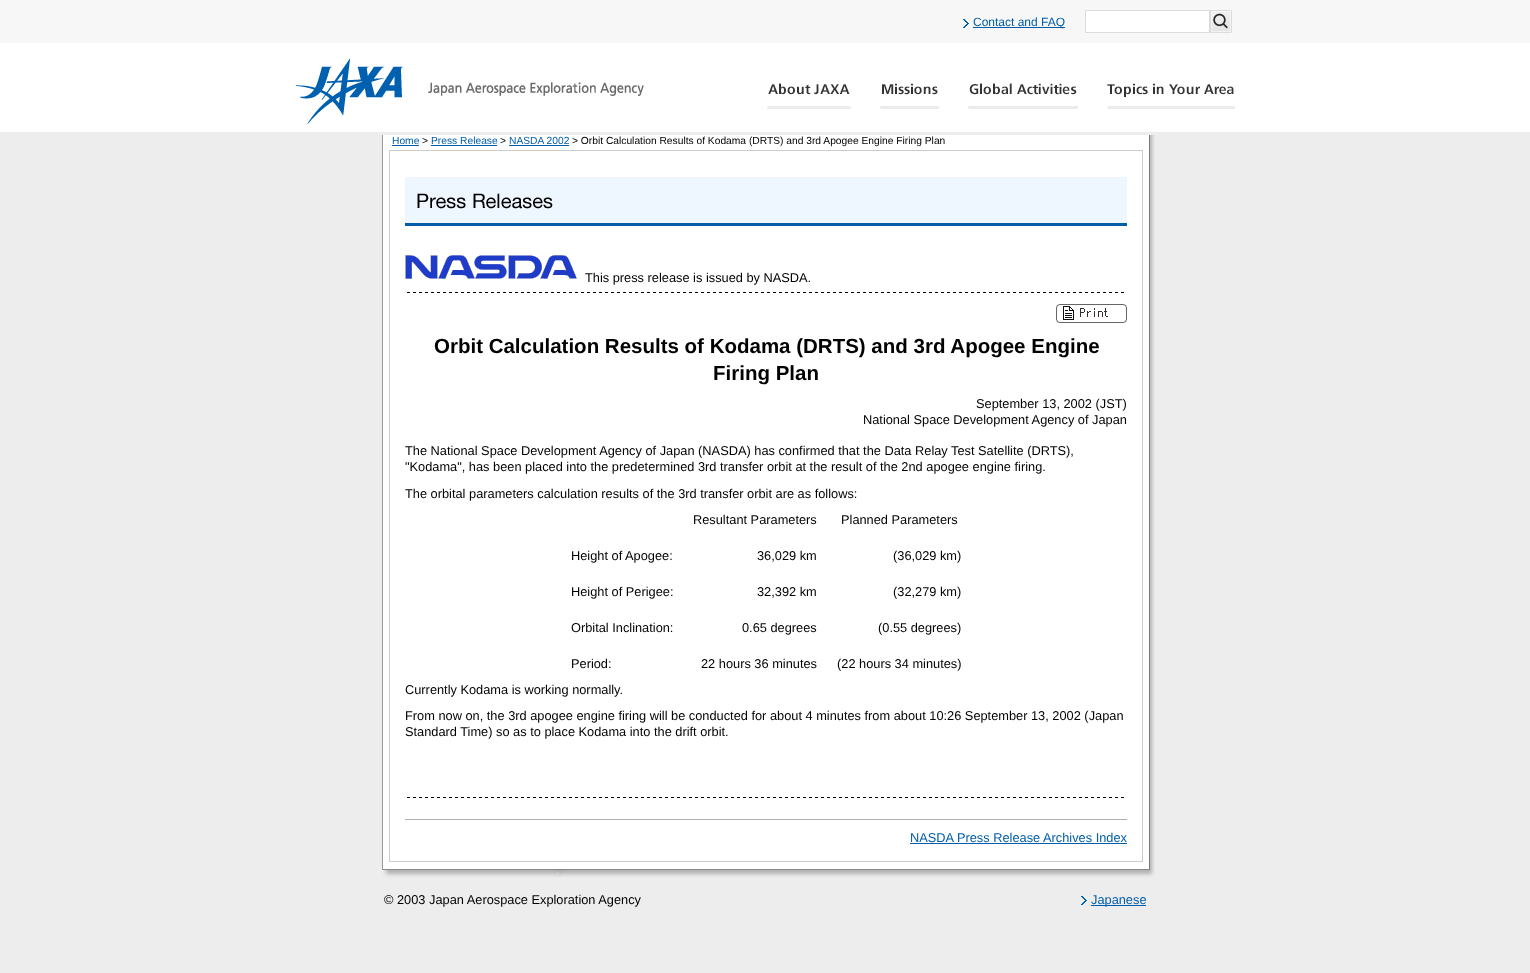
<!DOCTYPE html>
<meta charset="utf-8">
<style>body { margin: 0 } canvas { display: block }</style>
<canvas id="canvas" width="1530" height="973"></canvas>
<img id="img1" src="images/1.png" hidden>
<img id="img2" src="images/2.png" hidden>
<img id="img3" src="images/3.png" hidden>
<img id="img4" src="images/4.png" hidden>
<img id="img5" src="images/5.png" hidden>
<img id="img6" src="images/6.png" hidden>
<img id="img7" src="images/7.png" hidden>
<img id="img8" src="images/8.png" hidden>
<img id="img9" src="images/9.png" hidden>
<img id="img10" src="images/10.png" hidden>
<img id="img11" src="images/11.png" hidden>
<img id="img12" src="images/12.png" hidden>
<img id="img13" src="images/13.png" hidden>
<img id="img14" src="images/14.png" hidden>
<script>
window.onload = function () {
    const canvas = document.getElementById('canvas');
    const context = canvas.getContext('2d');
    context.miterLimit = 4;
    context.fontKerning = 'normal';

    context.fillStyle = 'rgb(237, 237, 237)';
    context.fillRect(0, 0, 1530, 973);
    context.fillStyle = 'rgb(247, 247, 247)';
    context.fillRect(0, 0, 1530, 43);
    context.drawImage(document.getElementById('img1'), 963, 19, 6, 9);
    context.fillStyle = 'rgb(0, 93, 169)';
    context.fillRect(973, 27, 92, 1);
    context.fillStyle = 'rgb(255, 255, 255)';
    context.beginPath();
    context.rect(1085.5, 10.5, 124, 22);
    context.fill();
    context.strokeStyle = 'rgb(219, 219, 219)';
    context.stroke();
    context.drawImage(document.getElementById('img2'), 1210, 10, 22, 23);
    context.fillRect(0, 43, 1530, 89);
    context.drawImage(document.getElementById('img3'), 295, 58, 349, 66);
    context.drawImage(document.getElementById('img4'), 767, 83, 84, 26);
    context.drawImage(document.getElementById('img5'), 880, 83, 60, 26);
    context.drawImage(document.getElementById('img6'), 968, 83, 110, 26);
    context.drawImage(document.getElementById('img7'), 1107, 83, 128, 26);
    context.drawImage(document.getElementById('img8'), 382, 135, 773, 734);
    context.fillStyle = 'rgb(0, 93, 169)';
    context.fillRect(392, 145, 27, 1);
    context.fillRect(431, 145, 66, 1);
    context.fillRect(509, 145, 60, 1);
    context.strokeStyle = 'rgb(204, 204, 204)';
    context.strokeRect(389.5, 150.5, 753, 711);
    context.drawImage(document.getElementById('img9'), 405, 177, 722, 49);
    context.drawImage(document.getElementById('img10'), 405, 255, 172, 24);
    context.drawImage(document.getElementById('img11'), 407, 292, 717, 1);
    context.drawImage(document.getElementById('img12'), 1056, 304, 71, 19);
    context.drawImage(document.getElementById('img11'), 407, 797, 717, 1);
    context.fillStyle = 'rgb(177, 177, 177)';
    context.fillRect(405, 819, 722, 1);
    context.fillStyle = 'rgb(0, 93, 169)';
    context.fillRect(910, 843, 217, 1);
    context.drawImage(document.getElementById('img13'), 382, 869, 773, 11);
    context.drawImage(document.getElementById('img14'), 1081, 896, 6, 9);
    context.fillRect(1091, 905, 55, 1);
    context.font = '12px Liberation Sans';
    context.fillText('Contact and FAQ', 973, 26);
    context.font = '10.25px Liberation Sans';
    context.fillText('Home', 392, 144);
    context.fillStyle = 'rgb(0, 0, 0)';
    context.fillText('>', 422, 144);
    context.fillStyle = 'rgb(0, 93, 169)';
    context.fillText('Press Release', 431, 144);
    context.fillStyle = 'rgb(0, 0, 0)';
    context.fillText('>', 500, 144);
    context.fillStyle = 'rgb(0, 93, 169)';
    context.fillText('NASDA 2002', 509, 144);
    context.fillStyle = 'rgb(0, 0, 0)';
    context.fillText('> Orbit Calculation Results of Kodama (DRTS) and 3rd Apogee Engine Firing Plan', 572, 144);
    context.font = '12.8px Liberation Sans';
    context.fillText('This press release is issued by NASDA.', 585, 282);
    context.font = 'bold 20.5px Liberation Sans';
    context.fillText('Orbit Calculation Results of Kodama (DRTS) and 3rd Apogee Engine', 434, 353);
    context.fillText('Firing Plan', 713, 380);
    context.font = '12.8px Liberation Sans';
    context.fillText('September 13, 2002 (JST)', 976, 408);
    context.fillText('National Space Development Agency of Japan', 863, 424);
    context.fillText('The National Space Development Agency of Japan (NASDA) has confirmed that the Data Relay Test Satellite (DRTS),', 405, 455);
    context.fillText('"Kodama", has been placed into the predetermined 3rd transfer orbit at the result of the 2nd apogee engine firing.', 405, 471);
    context.fillText('The orbital parameters calculation results of the 3rd transfer orbit are as follows:', 405, 498);
    context.fillText('Resultant Parameters', 693, 524);
    context.fillText('Planned Parameters', 841, 524);
    context.fillText('Height of Apogee:', 571, 560);
    context.fillText('36,029 km', 757, 560);
    context.fillText('(36,029 km)', 893, 560);
    context.fillText('Height of Perigee:', 571, 596);
    context.fillText('32,392 km', 757, 596);
    context.fillText('(32,279 km)', 893, 596);
    context.fillText('Orbital Inclination:', 571, 632);
    context.fillText('0.65 degrees', 742, 632);
    context.fillText('(0.55 degrees)', 878, 632);
    context.fillText('Period:', 571, 668);
    context.fillText('22 hours 36 minutes', 701, 668);
    context.fillText('(22 hours 34 minutes)', 837, 668);
    context.fillText('Currently Kodama is working normally.', 405, 694);
    context.fillText('From now on, the 3rd apogee engine firing will be conducted for about 4 minutes from about 10:26 September 13, 2002 (Japan', 405, 720);
    context.fillText('Standard Time) so as to place Kodama into the drift orbit.', 405, 736);
    context.fillStyle = 'rgb(0, 93, 169)';
    context.fillText('NASDA Press Release Archives Index', 910, 842);
    context.fillStyle = 'rgb(0, 0, 0)';
    context.fillText('© 2003 Japan Aerospace Exploration Agency', 384, 904);
    context.fillStyle = 'rgb(0, 93, 169)';
    context.fillText('Japanese', 1091, 904);
};
</script>
